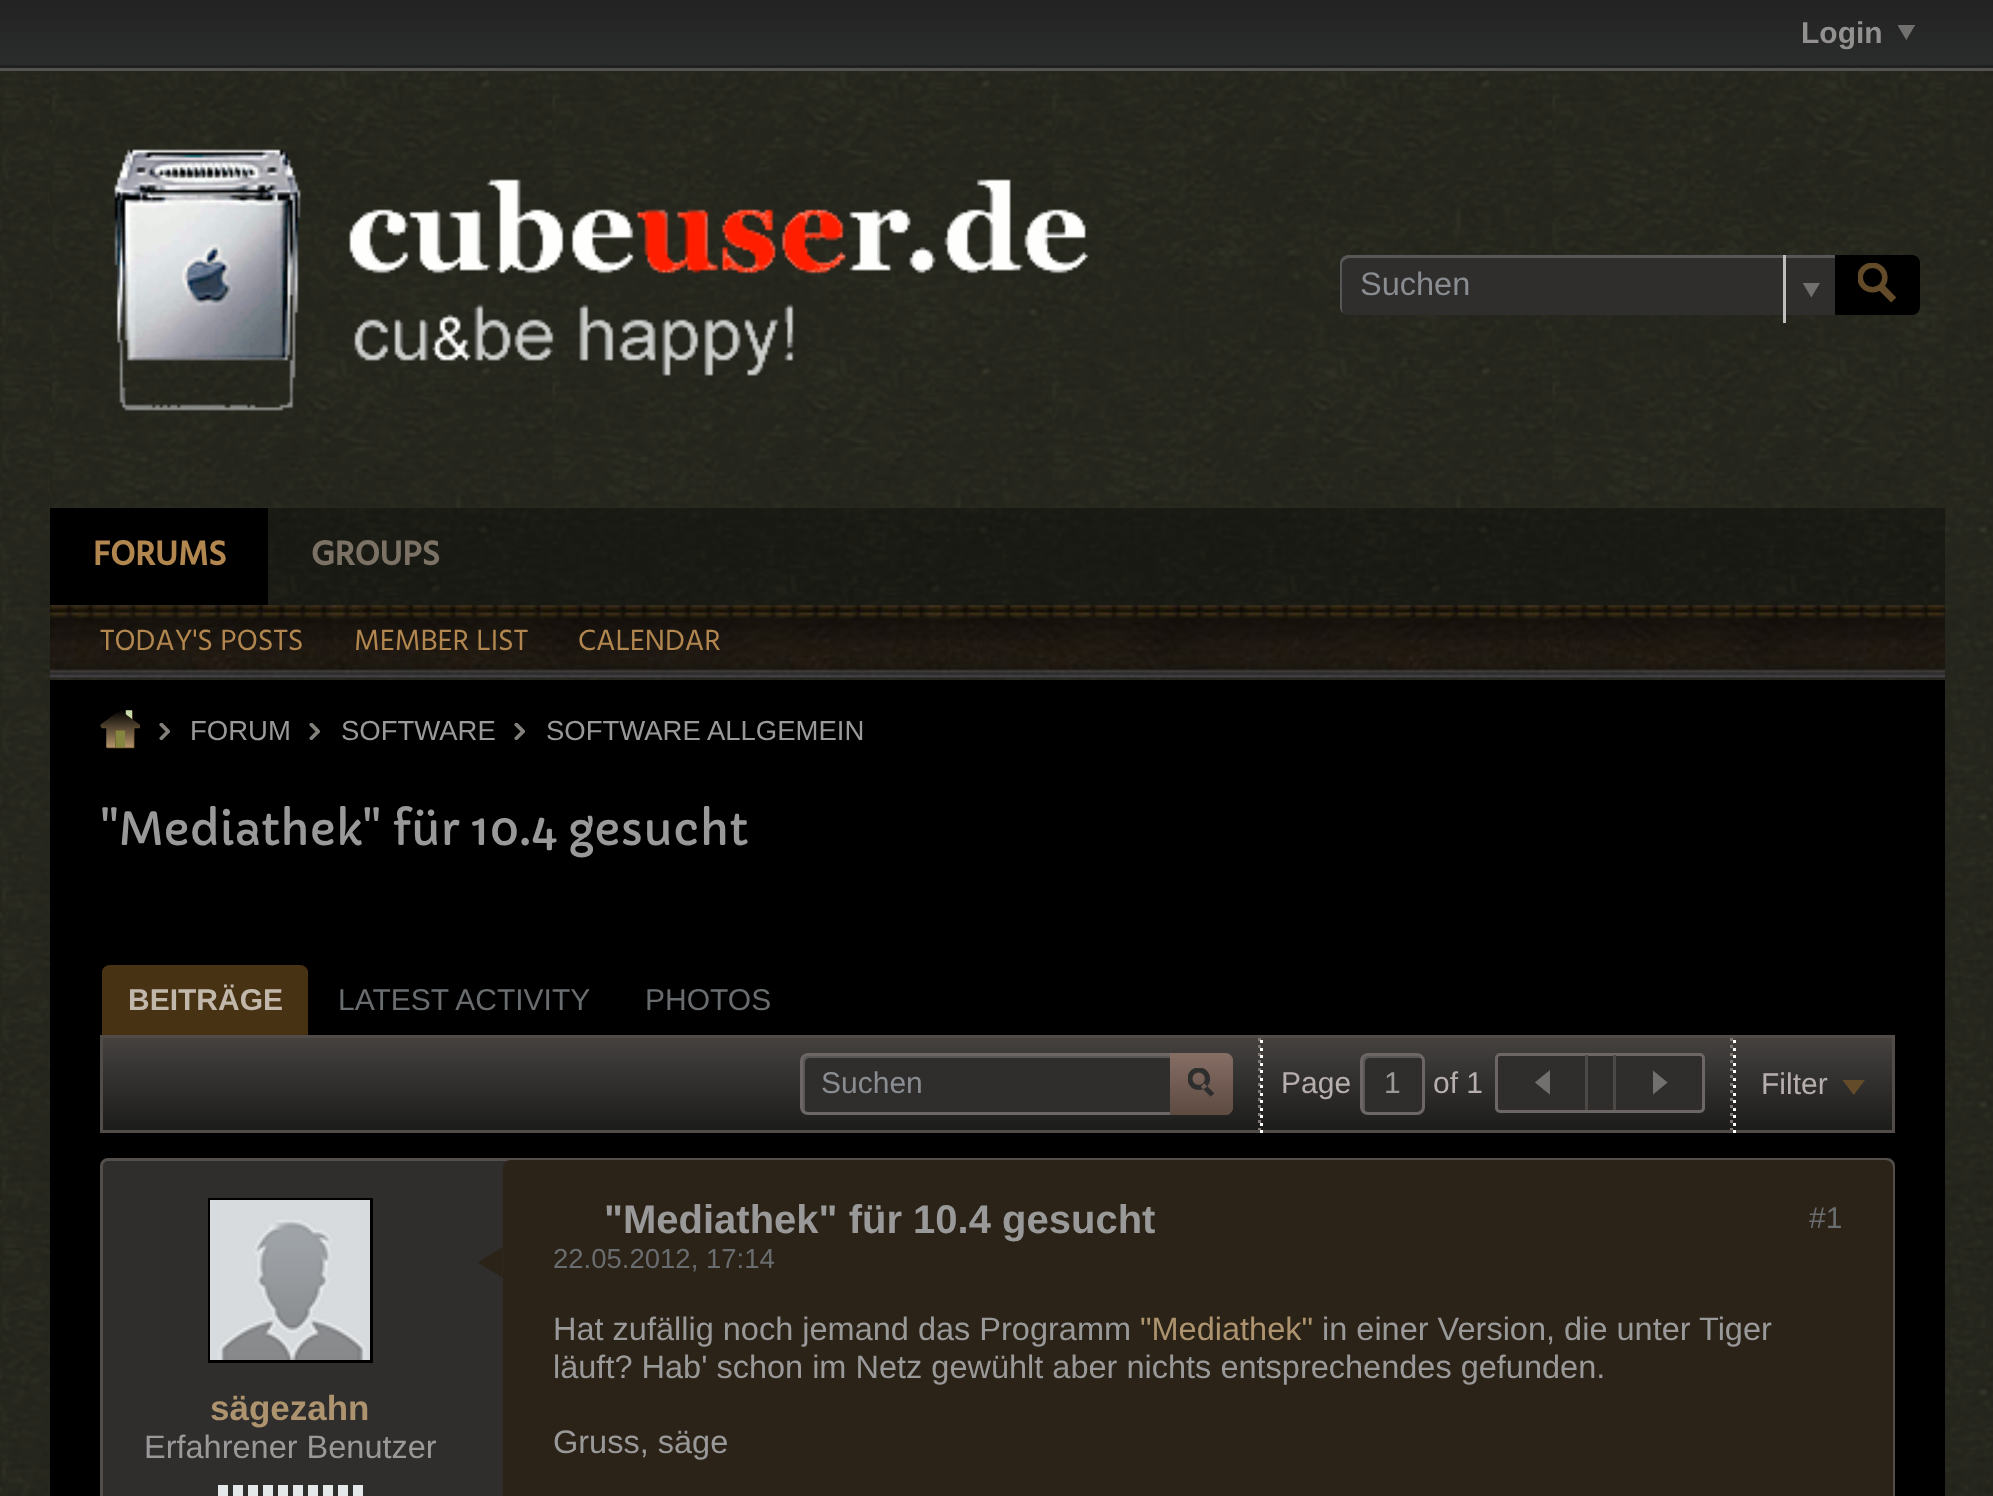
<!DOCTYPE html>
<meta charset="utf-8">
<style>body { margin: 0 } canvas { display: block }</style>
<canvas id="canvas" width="1993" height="1496"></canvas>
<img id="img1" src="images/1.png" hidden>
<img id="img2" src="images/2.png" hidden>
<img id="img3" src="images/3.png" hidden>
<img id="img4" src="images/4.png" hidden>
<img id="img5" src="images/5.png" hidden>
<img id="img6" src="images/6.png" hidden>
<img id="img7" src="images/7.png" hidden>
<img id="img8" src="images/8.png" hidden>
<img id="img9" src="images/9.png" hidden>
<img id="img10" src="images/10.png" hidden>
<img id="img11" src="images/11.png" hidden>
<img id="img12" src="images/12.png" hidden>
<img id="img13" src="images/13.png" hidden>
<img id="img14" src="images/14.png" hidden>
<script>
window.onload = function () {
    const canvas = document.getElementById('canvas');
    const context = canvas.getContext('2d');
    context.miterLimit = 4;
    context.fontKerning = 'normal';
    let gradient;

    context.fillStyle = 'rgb(255, 255, 255)';
    context.fillRect(0, 0, 1993, 1496);
    context.drawImage(document.getElementById('img1'), 0, 71, 1993, 1425);
    gradient = context.createLinearGradient(998, 0, 998, 70);
    gradient.addColorStop(0, 'rgb(34, 34, 34)');
    gradient.addColorStop(1, 'rgb(43, 45, 44)');
    context.fillStyle = gradient;
    context.fillRect(0, 0, 1993, 65);
    context.drawImage(document.getElementById('img2'), 1898, 25, 17, 15);
    context.fillStyle = 'rgb(32, 32, 32)';
    context.fillRect(0, 65, 1993, 3);
    context.fillStyle = 'rgb(83, 82, 81)';
    context.fillRect(0, 68, 1993, 3);
    context.fillStyle = 'rgb(44, 42, 34)';
    context.fillRect(50, 507, 1895, 1);
    context.drawImage(document.getElementById('img3'), 50, 71, 1895, 437);
    context.drawImage(document.getElementById('img4'), 114, 149, 975, 262);
    context.fillStyle = 'rgb(48, 46, 45)';
    context.beginPath();
    context.roundRect(1340, 255, 495, 60, [8, 0, 0, 8]);
    context.fill();
    context.fillStyle = 'rgba(150, 150, 150, 0.4)';
    context.beginPath();
    context.moveTo(1350, 258);
    context.lineTo(1835, 258);
    context.lineTo(1835, 255);
    context.lineTo(1348, 255);
    context.bezierCurveTo(1344, 255, 1340, 259, 1340, 263);
    context.lineTo(1340, 307);
    context.bezierCurveTo(1340, 309, 1341, 312, 1343, 313);
    context.lineTo(1342, 310);
    context.lineTo(1342, 265);
    context.bezierCurveTo(1342, 261, 1346, 258, 1350, 258);
    context.closePath();
    context.fill();
    context.fillStyle = 'rgb(189, 189, 189)';
    context.fillRect(1783, 255, 3, 68);
    context.drawImage(document.getElementById('img5'), 1803, 283, 17, 15);
    context.fillStyle = 'rgb(0, 0, 0)';
    context.beginPath();
    context.roundRect(1835, 255, 85, 60, [0, 8, 8, 0]);
    context.fill();
    context.drawImage(document.getElementById('img6'), 1858, 263, 40, 40);
    context.fillStyle = 'rgba(0, 0, 0, 0.3)';
    context.fillRect(268, 508, 1677, 97);
    context.fillStyle = 'rgb(0, 0, 0)';
    context.fillRect(50, 508, 218, 97);
    context.fillStyle = 'rgb(34, 27, 21)';
    context.fillRect(50, 677, 1895, 1);
    context.drawImage(document.getElementById('img7'), 50, 605, 1895, 73);
    context.fillStyle = 'rgb(0, 0, 0)';
    context.fillRect(50, 680, 1895, 816);
    context.drawImage(document.getElementById('img8'), 100, 710, 40, 39);
    context.drawImage(document.getElementById('img9'), 159, 723, 11, 17);
    context.drawImage(document.getElementById('img9'), 309, 723, 11, 17);
    context.drawImage(document.getElementById('img9'), 514, 723, 11, 17);
    context.fillStyle = 'rgb(72, 50, 20)';
    context.beginPath();
    context.roundRect(100, 963, 210, 72, [10, 10, 0, 0]);
    context.fill();
    context.fillStyle = 'rgb(0, 0, 0)';
    context.beginPath();
    context.moveTo(110, 962);
    context.lineTo(300, 962);
    context.bezierCurveTo(306, 962, 310, 967, 310, 972);
    context.lineTo(310, 1035);
    context.lineTo(100, 1035);
    context.lineTo(100, 972);
    context.bezierCurveTo(100, 967, 104, 962, 110, 962);
    context.closePath();
    context.moveTo(110, 965);
    context.lineTo(300, 965);
    context.bezierCurveTo(304, 965, 308, 968, 308, 972);
    context.lineTo(308, 1035);
    context.lineTo(102, 1035);
    context.lineTo(102, 972);
    context.bezierCurveTo(102, 968, 106, 965, 110, 965);
    context.closePath();
    context.fill('evenodd');
    gradient = context.createLinearGradient(998, 1037, 998, 1130);
    gradient.addColorStop(0, 'rgb(69, 66, 64)');
    gradient.addColorStop(1, 'rgb(28, 28, 27)');
    context.fillStyle = gradient;
    context.fillRect(103, 1038, 1789, 92);
    context.strokeStyle = 'rgb(81, 76, 72)';
    context.lineWidth = 3;
    context.strokeRect(101.5, 1036.5, 1792, 95);
    context.fillStyle = 'rgb(48, 46, 45)';
    context.beginPath();
    context.roundRect(800, 1053, 433, 62, 8);
    context.fill();
    context.fillStyle = 'rgb(89, 88, 87)';
    context.beginPath();
    context.moveTo(810, 1058);
    context.lineTo(1228, 1058);
    context.lineTo(1230, 1059);
    context.bezierCurveTo(1229, 1056, 1227, 1055, 1225, 1055);
    context.lineTo(808, 1055);
    context.bezierCurveTo(805, 1055, 803, 1057, 803, 1060);
    context.lineTo(803, 1108);
    context.bezierCurveTo(803, 1110, 804, 1111, 805, 1112);
    context.lineTo(805, 1110);
    context.lineTo(805, 1062);
    context.bezierCurveTo(805, 1060, 807, 1058, 810, 1058);
    context.closePath();
    context.fill();
    context.beginPath();
    context.roundRect(801.5, 1054.5, 430, 59, 6.5);
    context.strokeStyle = 'rgb(108, 103, 100)';
    context.stroke();
    gradient = context.createLinearGradient(1201, 1053, 1201, 1115);
    gradient.addColorStop(0, 'rgb(134, 110, 101)');
    gradient.addColorStop(1, 'rgb(93, 74, 65)');
    context.fillStyle = gradient;
    context.beginPath();
    context.roundRect(1170, 1053, 63, 62, [0, 8, 8, 0]);
    context.fill();
    context.drawImage(document.getElementById('img10'), 1188, 1068, 27, 29);
    context.fillStyle = 'rgb(127, 119, 113)';
    context.fillRect(1258, 1038, 3, 3);
    context.fillRect(1258, 1045, 3, 3);
    context.fillRect(1258, 1053, 3, 3);
    context.fillRect(1258, 1060, 3, 3);
    context.fillRect(1258, 1068, 3, 3);
    context.fillRect(1258, 1075, 3, 3);
    context.fillRect(1258, 1083, 3, 3);
    context.fillRect(1258, 1090, 3, 3);
    context.fillRect(1258, 1098, 3, 3);
    context.fillRect(1258, 1105, 3, 3);
    context.fillRect(1258, 1113, 3, 3);
    context.fillRect(1258, 1120, 3, 3);
    context.fillRect(1258, 1128, 3, 2);
    context.fillStyle = 'rgb(255, 255, 255)';
    context.fillRect(1260, 1040, 3, 3);
    context.fillRect(1260, 1048, 3, 3);
    context.fillRect(1260, 1055, 3, 3);
    context.fillRect(1260, 1063, 3, 3);
    context.fillRect(1260, 1070, 3, 3);
    context.fillRect(1260, 1078, 3, 3);
    context.fillRect(1260, 1085, 3, 3);
    context.fillRect(1260, 1093, 3, 3);
    context.fillRect(1260, 1100, 3, 3);
    context.fillRect(1260, 1108, 3, 3);
    context.fillRect(1260, 1115, 3, 3);
    context.fillRect(1260, 1123, 3, 3);
    context.fillRect(1260, 1130, 3, 3);
    context.fillStyle = 'rgb(48, 46, 45)';
    context.beginPath();
    context.roundRect(1360, 1053, 65, 62, 8);
    context.fill();
    context.fillStyle = 'rgb(89, 88, 87)';
    context.beginPath();
    context.moveTo(1370, 1058);
    context.lineTo(1420, 1058);
    context.lineTo(1423, 1059);
    context.bezierCurveTo(1422, 1057, 1420, 1055, 1418, 1055);
    context.lineTo(1368, 1055);
    context.bezierCurveTo(1365, 1055, 1363, 1057, 1363, 1060);
    context.lineTo(1363, 1108);
    context.bezierCurveTo(1363, 1110, 1364, 1111, 1365, 1112);
    context.lineTo(1365, 1110);
    context.lineTo(1365, 1062);
    context.bezierCurveTo(1365, 1060, 1367, 1058, 1370, 1058);
    context.closePath();
    context.fill();
    context.beginPath();
    context.roundRect(1361.5, 1054.5, 62, 59, 6.5);
    context.stroke();
    context.fillStyle = 'rgb(48, 46, 45)';
    context.beginPath();
    context.roundRect(1496.5, 1054.5, 207, 57, 3.5);
    context.fill();
    context.stroke();
    context.fillStyle = 'rgb(77, 73, 70)';
    context.fillRect(1585, 1055, 3, 55);
    context.drawImage(document.getElementById('img11'), 1535, 1070, 15, 25);
    context.fillRect(1613, 1055, 3, 55);
    context.drawImage(document.getElementById('img12'), 1653, 1070, 15, 25);
    context.fillStyle = 'rgb(127, 119, 113)';
    context.fillRect(1730, 1038, 3, 3);
    context.fillRect(1730, 1045, 3, 3);
    context.fillRect(1730, 1053, 3, 3);
    context.fillRect(1730, 1060, 3, 3);
    context.fillRect(1730, 1068, 3, 3);
    context.fillRect(1730, 1075, 3, 3);
    context.fillRect(1730, 1083, 3, 3);
    context.fillRect(1730, 1090, 3, 3);
    context.fillRect(1730, 1098, 3, 3);
    context.fillRect(1730, 1105, 3, 3);
    context.fillRect(1730, 1113, 3, 3);
    context.fillRect(1730, 1120, 3, 3);
    context.fillRect(1730, 1128, 3, 2);
    context.fillStyle = 'rgb(255, 255, 255)';
    context.fillRect(1733, 1040, 3, 3);
    context.fillRect(1733, 1048, 3, 3);
    context.fillRect(1733, 1055, 3, 3);
    context.fillRect(1733, 1063, 3, 3);
    context.fillRect(1733, 1070, 3, 3);
    context.fillRect(1733, 1078, 3, 3);
    context.fillRect(1733, 1085, 3, 3);
    context.fillRect(1733, 1093, 3, 3);
    context.fillRect(1733, 1100, 3, 3);
    context.fillRect(1733, 1108, 3, 3);
    context.fillRect(1733, 1115, 3, 3);
    context.fillRect(1733, 1123, 3, 3);
    context.fillRect(1733, 1130, 3, 3);
    context.drawImage(document.getElementById('img13'), 1843, 1080, 22, 15);
    context.fillStyle = 'rgb(48, 46, 45)';
    context.beginPath();
    context.roundRect(101.5, 1159.5, 1792, 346, 6.5);
    context.fill();
    context.strokeStyle = 'rgb(82, 78, 76)';
    context.stroke();
    context.strokeStyle = 'rgb(0, 0, 0)';
    context.strokeRect(209.5, 1199.5, 162, 162);
    context.drawImage(document.getElementById('img14'), 210, 1200, 160, 160);
    context.fillStyle = 'rgb(229, 232, 233)';
    context.fillRect(218, 1485, 10, 11);
    context.fillRect(233, 1485, 10, 11);
    context.fillRect(248, 1485, 10, 11);
    context.fillRect(263, 1485, 10, 11);
    context.fillRect(278, 1485, 10, 11);
    context.fillRect(293, 1485, 10, 11);
    context.fillRect(308, 1485, 10, 11);
    context.fillRect(323, 1485, 10, 11);
    context.fillRect(338, 1485, 10, 11);
    context.fillRect(353, 1485, 10, 11);
    context.fillStyle = 'rgb(43, 35, 24)';
    context.beginPath();
    context.roundRect(503, 1160, 1390, 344, 8);
    context.fill();
    context.beginPath();
    context.moveTo(502.5, 1247.5);
    context.lineTo(502.5, 1277.5);
    context.lineTo(477.5, 1262.5);
    context.closePath();
    context.fill();
    context.font = 'bold 30px Liberation Sans';
    context.fillStyle = 'rgb(147, 145, 144)';
    context.fillText('Login', 1801, 43);
    context.font = '32.5px Liberation Sans';
    context.fillStyle = 'rgb(137, 141, 145)';
    context.fillText('Suchen', 1360, 295);
    context.font = 'bold 35px Hind';
    context.fillStyle = 'rgb(177, 134, 79)';
    context.fillText('FORUMS', 93, 565);
    context.fillStyle = 'rgb(123, 113, 101)';
    context.fillText('GROUPS', 311, 565);
    context.font = '30px Hind';
    context.fillStyle = 'rgb(177, 134, 79)';
    context.fillText('TODAY\'S POSTS', 100, 650);
    context.fillText('MEMBER LIST', 354, 650);
    context.fillText('CALENDAR', 578, 650);
    context.font = '27.5px Liberation Sans';
    context.fillStyle = 'rgb(154, 153, 153)';
    context.fillText('FORUM', 190, 740);
    context.fillText('SOFTWARE', 341, 740);
    context.fillText('SOFTWARE ALLGEMEIN', 546, 740);
    context.font = '45px Capriola';
    context.fillText('"Mediathek" für 10.4 gesucht', 100, 845);
    context.font = 'bold 30px Liberation Sans';
    context.fillStyle = 'rgb(193, 184, 171)';
    context.fillText('BEITRÄGE', 128, 1010);
    context.font = '30px Liberation Sans';
    context.fillStyle = 'rgb(106, 109, 111)';
    context.fillText('LATEST ACTIVITY', 338, 1010);
    context.fillText('PHOTOS', 645, 1010);
    context.fillStyle = 'rgb(137, 141, 145)';
    context.fillText('Suchen', 821, 1093);
    context.fillStyle = 'rgb(182, 175, 173)';
    context.fillText('Page', 1281, 1093);
    context.fillStyle = 'rgb(154, 153, 153)';
    context.fillText('1', 1384, 1093);
    context.fillStyle = 'rgb(182, 175, 173)';
    context.fillText('of 1', 1433, 1093);
    context.fillText('Filter', 1761, 1094);
    context.font = 'bold 35px Liberation Sans';
    context.fillStyle = 'rgb(173, 147, 110)';
    context.fillText('sägezahn', 210, 1420);
    context.font = '32.5px Liberation Sans';
    context.fillStyle = 'rgb(154, 153, 153)';
    context.fillText('Erfahrener Benutzer', 144, 1458);
    context.font = 'bold 40px Liberation Sans';
    context.fillText('"Mediathek" für 10.4 gesucht', 604, 1233);
    context.font = '27.5px Liberation Sans';
    context.fillStyle = 'rgb(106, 109, 111)';
    context.fillText('22.05.2012, 17:14', 553, 1268);
    context.font = '30px Liberation Sans';
    context.fillText('#1', 1809, 1228);
    context.font = '32.5px Liberation Sans';
    context.fillStyle = 'rgb(154, 153, 153)';
    context.fillText('Hat zufällig noch jemand das Programm', 553, 1340);
    context.fillStyle = 'rgb(173, 147, 110)';
    context.fillText('"Mediathek"', 1140, 1340);
    context.fillStyle = 'rgb(154, 153, 153)';
    context.fillText('in einer Version, die unter Tiger', 1322, 1340);
    context.fillText('läuft? Hab\' schon im Netz gewühlt aber nichts entsprechendes gefunden.', 553, 1378);
    context.fillText('Gruss, säge', 553, 1453);
};
</script>
